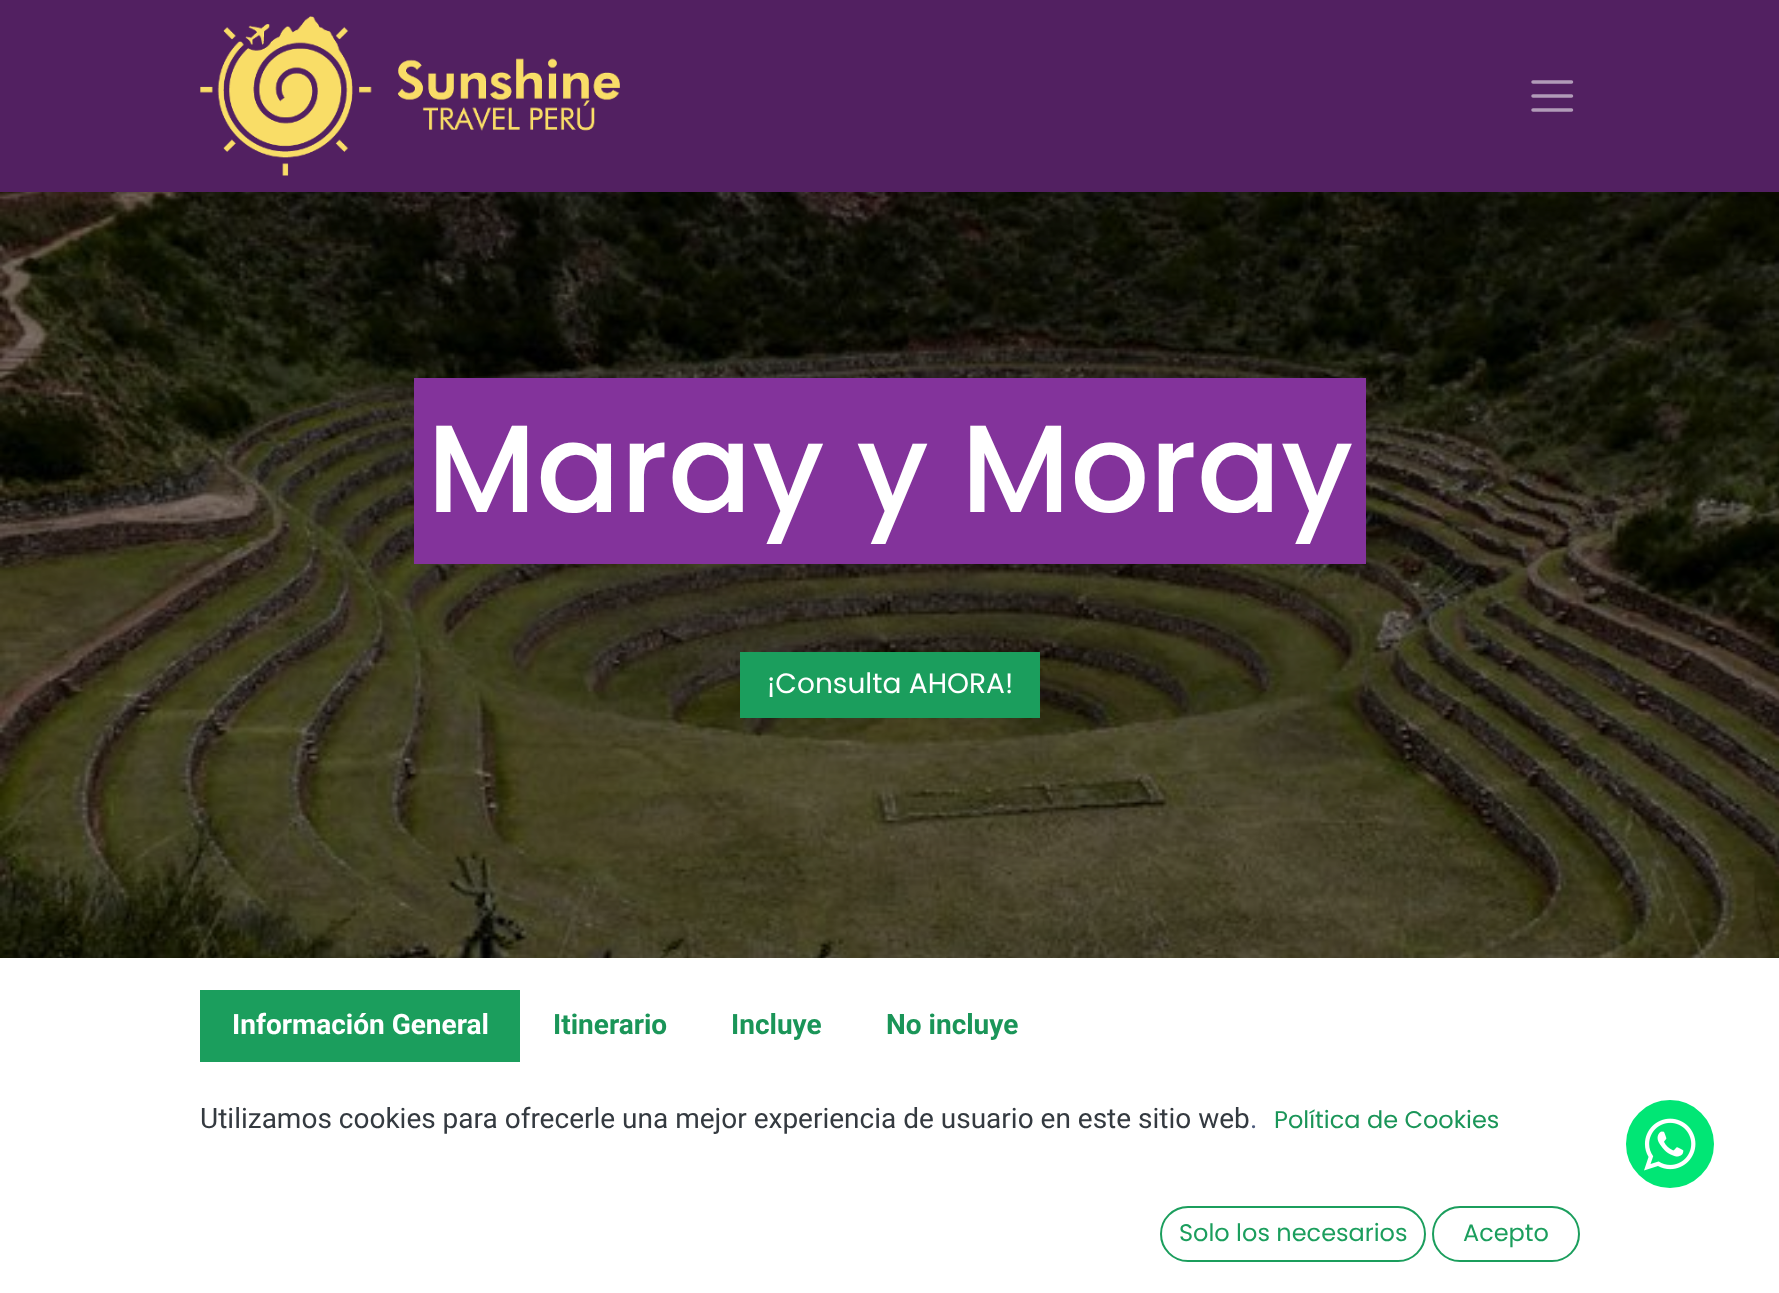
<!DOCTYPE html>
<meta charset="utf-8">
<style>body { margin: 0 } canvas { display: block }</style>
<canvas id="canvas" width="1779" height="1293"></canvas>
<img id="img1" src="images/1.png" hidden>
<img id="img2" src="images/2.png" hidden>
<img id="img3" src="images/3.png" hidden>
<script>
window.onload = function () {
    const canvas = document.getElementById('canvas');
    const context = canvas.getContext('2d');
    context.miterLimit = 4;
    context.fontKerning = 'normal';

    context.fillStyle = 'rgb(255, 255, 255)';
    context.fillRect(0, 0, 1779, 1293);
    context.fillStyle = 'rgb(82, 32, 97)';
    context.fillRect(0, 0, 1779, 192);
    context.drawImage(document.getElementById('img1'), 200, 16, 420, 160);
    context.beginPath();
    context.moveTo(1533, 82);
    context.lineTo(1571.5, 82);
    context.moveTo(1533, 96);
    context.lineTo(1571.5, 96);
    context.moveTo(1533, 110);
    context.lineTo(1571.5, 110);
    context.strokeStyle = 'rgb(177, 155, 184)';
    context.lineWidth = 3.5;
    context.lineCap = 'round';
    context.stroke();
    context.drawImage(document.getElementById('img2'), 0, 192, 1779, 766);
    context.fillStyle = 'rgb(131, 51, 155)';
    context.fillRect(414, 378, 952, 186);
    context.fillStyle = 'rgb(27, 158, 93)';
    context.fillRect(740, 652, 300, 66);
    context.fillRect(200, 990, 320, 72);
    context.beginPath();
    context.roundRect(1161, 1207, 264, 54, 27);
    context.strokeStyle = 'rgb(27, 158, 93)';
    context.lineWidth = 2;
    context.stroke();
    context.beginPath();
    context.roundRect(1433, 1207, 146, 54, 27);
    context.stroke();
    context.fillStyle = 'rgb(1, 230, 117)';
    context.beginPath();
    context.arc(1670, 1144, 47, 0, 2 * Math.PI);
    context.fill();
    context.strokeStyle = 'rgb(255, 255, 255)';
    context.lineWidth = 6;
    context.stroke();
    context.drawImage(document.getElementById('img3'), 1644, 1118, 52, 53);
    context.font = '500 124px Poppins';
    context.fillStyle = 'rgb(255, 255, 255)';
    context.fillText('Maray y Moray', 427, 512);
    context.font = '28px Poppins';
    context.fillText('¡Consulta AHORA!', 767, 693);
    context.font = 'bold 28px Roboto';
    context.fillText('Información General', 232, 1034);
    context.fillStyle = 'rgb(26, 149, 88)';
    context.fillText('Itinerario', 553, 1034);
    context.fillText('Incluye', 731, 1034);
    context.fillText('No incluye', 886, 1034);
    context.font = '28px Roboto';
    context.fillStyle = 'rgb(52, 58, 64)';
    context.fillText('Utilizamos cookies para ofrecerle una mejor experiencia de usuario en este sitio web', 200, 1128);
    context.fillStyle = 'rgb(77, 91, 124)';
    context.fillText('.', 1250, 1128);
    context.font = '24px Poppins';
    context.fillStyle = 'rgb(26, 149, 88)';
    context.fillText('Política de Cookies', 1274, 1128);
    context.fillStyle = 'rgb(27, 158, 93)';
    context.fillText('Solo los necesarios', 1179, 1241);
    context.fillText('Acepto', 1463, 1241);
};
</script>
